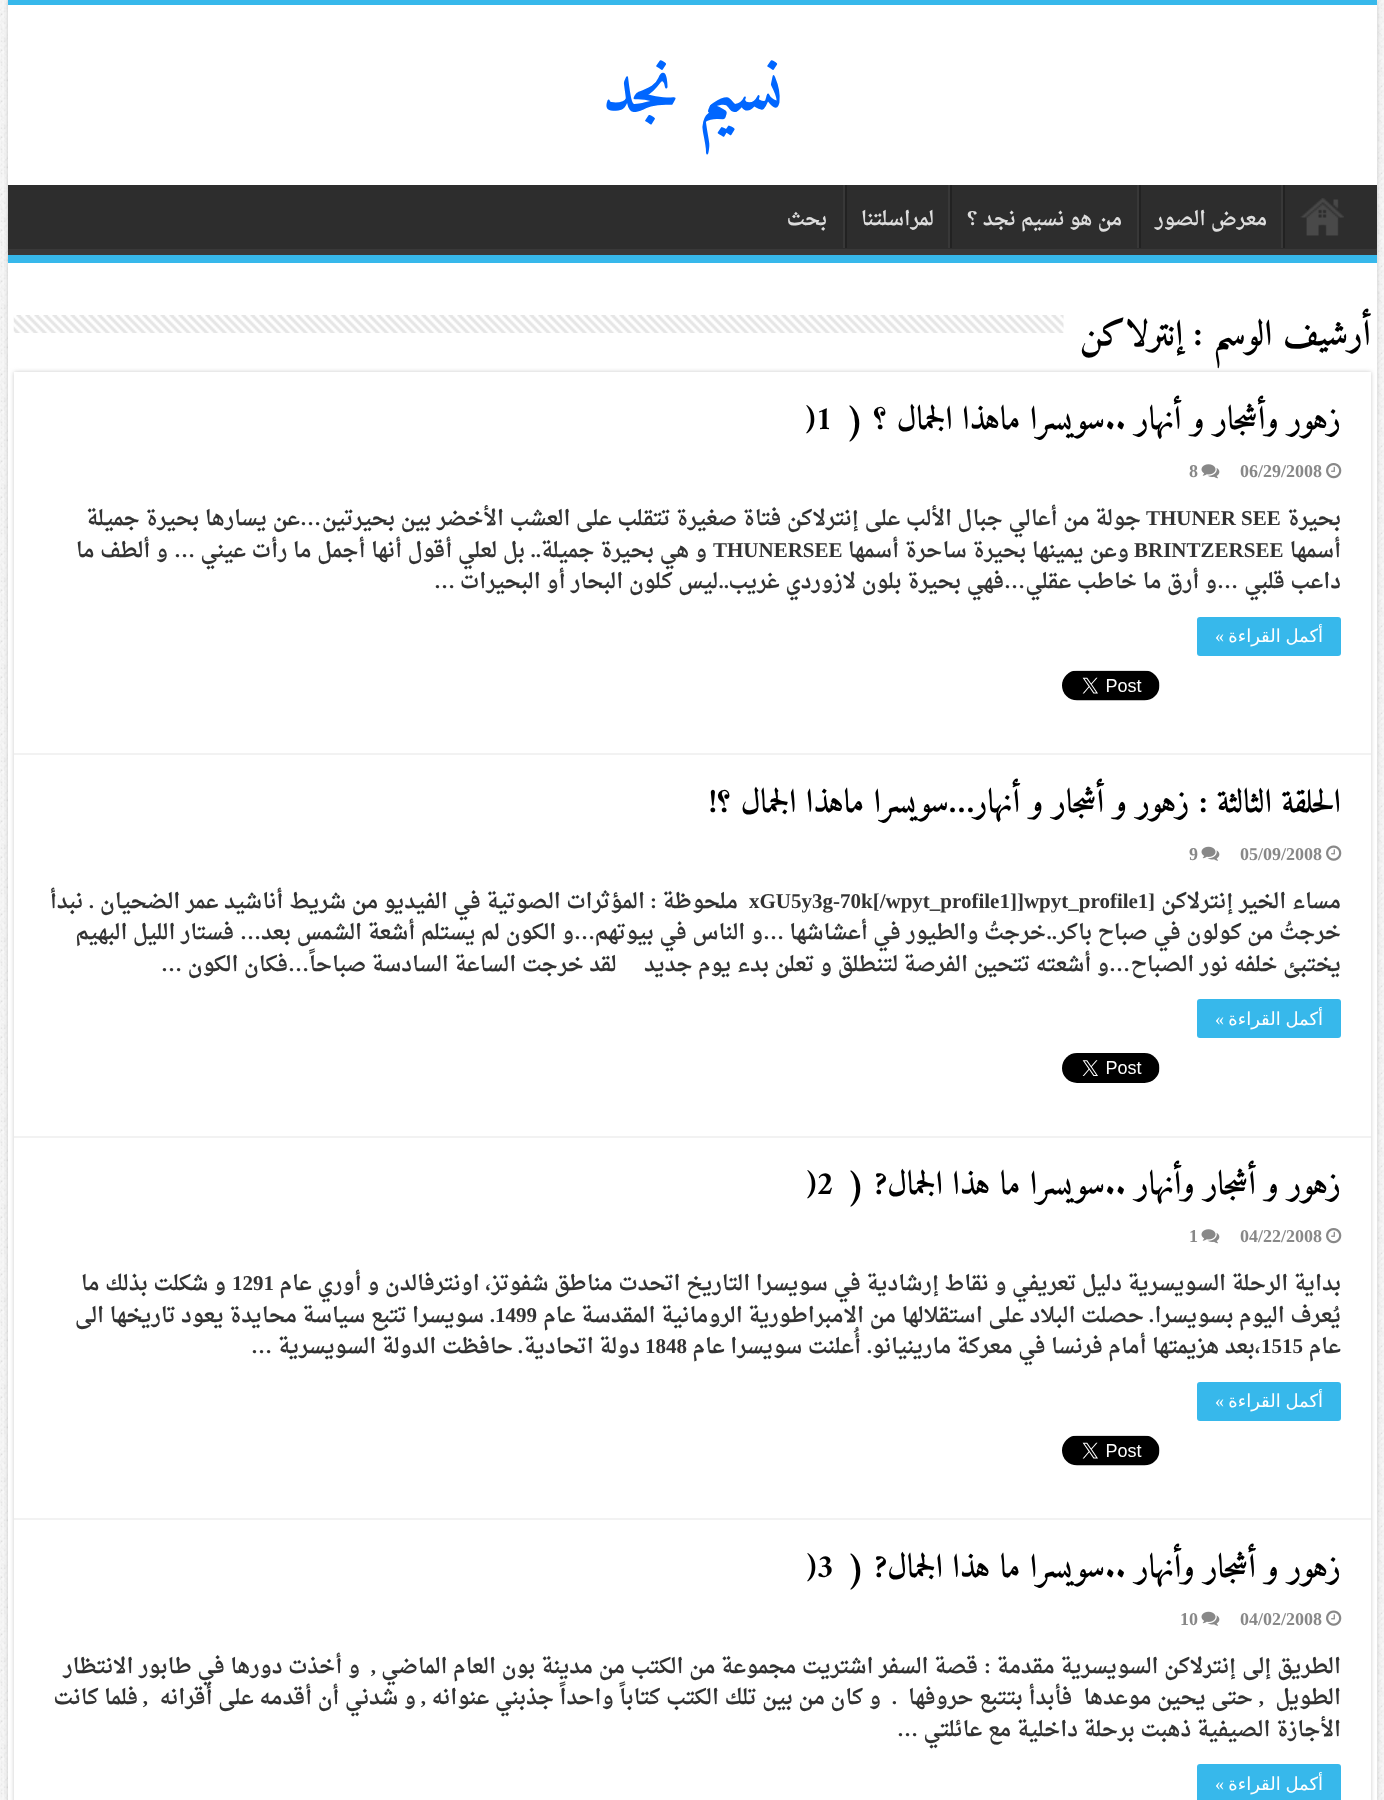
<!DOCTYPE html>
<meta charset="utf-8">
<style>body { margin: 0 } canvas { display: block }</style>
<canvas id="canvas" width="1384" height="1800"></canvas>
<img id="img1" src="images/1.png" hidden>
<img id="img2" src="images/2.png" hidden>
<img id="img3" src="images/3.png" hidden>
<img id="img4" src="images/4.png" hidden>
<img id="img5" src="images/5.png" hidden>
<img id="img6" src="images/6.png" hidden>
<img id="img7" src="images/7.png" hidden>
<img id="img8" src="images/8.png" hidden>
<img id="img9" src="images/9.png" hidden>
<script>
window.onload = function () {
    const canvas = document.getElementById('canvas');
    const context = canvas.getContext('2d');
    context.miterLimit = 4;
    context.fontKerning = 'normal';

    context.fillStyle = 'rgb(255, 255, 255)';
    context.fillRect(0, 0, 1384, 1800);
    context.drawImage(document.getElementById('img1'), 0, 0, 1384, 1800);
    context.fillStyle = 'rgb(202, 202, 202)';
    context.filter = 'blur(2px)';
    context.beginPath();
    context.rect(8, 0, 1369, 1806);
    context.fill();
    context.filter = 'none';
    context.fillStyle = 'rgb(255, 255, 255)';
    context.fillRect(8, 5, 1369, 1795);
    context.fillStyle = 'rgb(55, 184, 235)';
    context.fillRect(8, 0, 1369, 5);
    context.fillStyle = 'rgb(45, 45, 45)';
    context.fillRect(8, 185, 1369, 64);
    context.save();
    context.beginPath();
    context.rect(8, 185, 1369, 70);
    context.clip();
    context.fillStyle = 'rgb(57, 57, 57)';
    context.beginPath();
    context.moveTo(-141, 36);
    context.lineTo(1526, 36);
    context.lineTo(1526, 404);
    context.lineTo(-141, 404);
    context.closePath();
    context.moveTo(6, 176);
    context.lineTo(1376, 176);
    context.bezierCurveTo(1376, 176, 1377, 176, 1377, 177);
    context.lineTo(1377, 248);
    context.bezierCurveTo(1377, 248, 1376, 249, 1376, 249);
    context.lineTo(6, 249);
    context.bezierCurveTo(5, 249, 4, 248, 4, 248);
    context.lineTo(4, 177);
    context.bezierCurveTo(4, 176, 5, 176, 6, 176);
    context.closePath();
    context.fill('evenodd');
    context.restore();
    context.fillStyle = 'rgb(55, 184, 235)';
    context.fillRect(8, 255, 1369, 8);
    context.drawImage(document.getElementById('img2'), 1300, 198, 44, 38);
    context.fillStyle = 'rgb(34, 34, 34)';
    context.fillRect(1283, 185, 2, 63);
    context.fillStyle = 'rgb(56, 56, 56)';
    context.fillRect(1281, 185, 2, 63);
    context.fillStyle = 'rgb(34, 34, 34)';
    context.fillRect(1139, 185, 2, 63);
    context.fillStyle = 'rgb(56, 56, 56)';
    context.fillRect(1137, 185, 2, 63);
    context.fillStyle = 'rgb(34, 34, 34)';
    context.fillRect(950, 185, 2, 63);
    context.fillStyle = 'rgb(56, 56, 56)';
    context.fillRect(948, 185, 2, 63);
    context.fillStyle = 'rgb(34, 34, 34)';
    context.fillRect(845, 185, 2, 63);
    context.fillStyle = 'rgb(56, 56, 56)';
    context.fillRect(843, 185, 2, 63);
    context.drawImage(document.getElementById('img3'), 13, 315, 1051, 18);
    context.save();
    context.beginPath();
    context.moveTo(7, 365);
    context.lineTo(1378, 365);
    context.lineTo(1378, 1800);
    context.lineTo(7, 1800);
    context.closePath();
    context.moveTo(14, 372);
    context.lineTo(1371, 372);
    context.lineTo(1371, 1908);
    context.lineTo(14, 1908);
    context.closePath();
    context.clip('evenodd');
    context.fillStyle = 'rgb(202, 202, 202)';
    context.filter = 'blur(2px)';
    context.beginPath();
    context.rect(14, 372, 1357, 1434);
    context.fill();
    context.filter = 'none';
    context.restore();
    context.fillStyle = 'rgb(242, 242, 242)';
    context.fillRect(14, 753, 1357, 2);
    context.drawImage(document.getElementById('img4'), 1326, 463, 16, 16);
    context.drawImage(document.getElementById('img5'), 1201, 464, 19, 15);
    context.fillStyle = 'rgb(55, 184, 235)';
    context.beginPath();
    context.roundRect(1197, 617, 144, 39, 3);
    context.fill();
    context.drawImage(document.getElementById('img6'), 1062, 670, 98, 31);
    context.fillStyle = 'rgb(242, 242, 242)';
    context.fillRect(14, 1136, 1357, 2);
    context.drawImage(document.getElementById('img7'), 1326, 845, 16, 16);
    context.drawImage(document.getElementById('img8'), 1201, 846, 19, 15);
    context.fillStyle = 'rgb(55, 184, 235)';
    context.beginPath();
    context.roundRect(1197, 999, 144, 39, 3);
    context.fill();
    context.drawImage(document.getElementById('img9'), 1062, 1053, 98, 30);
    context.fillStyle = 'rgb(242, 242, 242)';
    context.fillRect(14, 1518, 1357, 2);
    context.drawImage(document.getElementById('img4'), 1326, 1228, 16, 16);
    context.drawImage(document.getElementById('img5'), 1201, 1229, 19, 15);
    context.fillStyle = 'rgb(55, 184, 235)';
    context.beginPath();
    context.roundRect(1197, 1382, 144, 39, 3);
    context.fill();
    context.drawImage(document.getElementById('img6'), 1062, 1435, 98, 31);
    context.drawImage(document.getElementById('img7'), 1326, 1610, 16, 16);
    context.drawImage(document.getElementById('img8'), 1201, 1611, 19, 15);
    context.beginPath();
    context.roundRect(1197, 1764, 144, 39, 3);
    context.fill();
    context.direction = 'rtl';
    context.font = 'bold 67.5px Amiri';
    context.fillStyle = 'rgb(0, 102, 255)';
    context.fillText('نسيم نجد', 783, 111);
    context.font = 'bold 19.5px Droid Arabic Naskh';
    context.fillStyle = 'rgb(221, 221, 221)';
    context.fillText('معرض الصور', 1267, 225);
    context.fillText('من هو نسيم نجد ؟', 1122, 225);
    context.fillText('لمراسلتنا', 934, 225);
    context.fillText('بحث', 827, 225);
    context.font = 'bold 36px Amiri';
    context.fillStyle = 'rgb(0, 0, 0)';
    context.fillText('أرشيف الوسم :', 1371, 345);
    context.fillText('إنترلاكن', 1183, 345);
    context.font = 'bold 33px Amiri';
    context.fillText('زهور وأشجار و أنهار ..سويسرا ماهذا الجمال ؟ (', 1341, 429);
    context.direction = 'ltr';
    context.fillText(')1', 806, 429);
    context.font = 'bold 18px Liberation Serif';
    context.fillStyle = 'rgb(136, 136, 136)';
    context.fillText('06/29/2008', 1240, 477);
    context.fillText('8', 1189, 477);
    context.direction = 'rtl';
    context.font = 'bold 21px Droid Arabic Naskh';
    context.fillStyle = 'rgb(51, 51, 51)';
    context.fillText('بحيرة', 1341, 525);
    context.direction = 'ltr';
    context.font = 'bold 21px Liberation Serif';
    context.fillText('THUNER SEE', 1146, 525);
    context.direction = 'rtl';
    context.font = 'bold 21px Droid Arabic Naskh';
    context.fillText('جولة من أعالي جبال الألب على إنترلاكن فتاة صغيرة تتقلب على العشب الأخضر بين بحيرتين', 1141, 525);
    context.font = 'bold 21px Liberation Serif';
    context.fillText('…', 321, 525);
    context.font = 'bold 21px Droid Arabic Naskh';
    context.fillText('عن يسارها بحيرة جميلة', 300, 525);
    context.fillText('أسمها', 1341, 557);
    context.direction = 'ltr';
    context.font = 'bold 21px Liberation Serif';
    context.fillText('BRINTZERSEE', 1134, 557);
    context.direction = 'rtl';
    context.font = 'bold 21px Droid Arabic Naskh';
    context.fillText('وعن يمينها بحيرة ساحرة أسمها', 1129, 557);
    context.direction = 'ltr';
    context.font = 'bold 21px Liberation Serif';
    context.fillText('THUNERSEE', 713, 557);
    context.direction = 'rtl';
    context.font = 'bold 21px Droid Arabic Naskh';
    context.fillText('و هي بحيرة جميلة', 707, 557);
    context.font = 'bold 21px Liberation Serif';
    context.fillText('..', 541, 557);
    context.font = 'bold 21px Droid Arabic Naskh';
    context.fillText('بل لعلي أقول أنها أجمل ما رأت عيني', 525, 557);
    context.font = 'bold 21px Liberation Serif';
    context.fillText('…', 195, 557);
    context.font = 'bold 21px Droid Arabic Naskh';
    context.fillText('و ألطف ما', 168, 557);
    context.fillText('داعب قلبي', 1341, 588);
    context.font = 'bold 21px Liberation Serif';
    context.fillText('…', 1238, 588);
    context.font = 'bold 21px Droid Arabic Naskh';
    context.fillText('و أرق ما خاطب عقلي', 1217, 588);
    context.font = 'bold 21px Liberation Serif';
    context.fillText('…', 1025, 588);
    context.font = 'bold 21px Droid Arabic Naskh';
    context.fillText('فهي بحيرة بلون لازوردي غريب', 1004, 588);
    context.font = 'bold 21px Liberation Serif';
    context.fillText('..', 729, 588);
    context.font = 'bold 21px Droid Arabic Naskh';
    context.fillText('ليس كلون البحار أو البحيرات', 718, 588);
    context.font = 'bold 21px Liberation Serif';
    context.fillText('…', 455, 588);
    context.wordSpacing = '-1px';
    context.font = '18px DejaVu Sans';
    context.fillStyle = 'rgb(255, 255, 255)';
    context.fillText('أكمل القراءة', 1323, 642);
    context.wordSpacing = '0px';
    context.font = '18px Liberation Serif';
    context.fillText('»', 1224, 642);
    context.font = 'bold 33px Amiri';
    context.fillStyle = 'rgb(0, 0, 0)';
    context.fillText('الحلقة الثالثة : زهور و أشجار و أنهار…سويسرا ماهذا الجمال ؟!', 1341, 812);
    context.direction = 'ltr';
    context.font = 'bold 18px Liberation Serif';
    context.fillStyle = 'rgb(136, 136, 136)';
    context.fillText('05/09/2008', 1240, 860);
    context.fillText('9', 1189, 860);
    context.direction = 'rtl';
    context.font = 'bold 21px Droid Arabic Naskh';
    context.fillStyle = 'rgb(51, 51, 51)';
    context.fillText('مساء الخير إنترلاكن', 1341, 908);
    context.font = 'bold 21px Liberation Serif';
    context.fillText('[', 1155, 908);
    context.direction = 'ltr';
    context.fillText('xGU5y3g-70k[/wpyt_profile1]]wpyt_profile1', 749, 908);
    context.direction = 'rtl';
    context.font = 'bold 21px Droid Arabic Naskh';
    context.fillText('ملحوظة', 738, 908);
    context.font = 'bold 21px Liberation Serif';
    context.fillText(':', 657, 908);
    context.font = 'bold 21px Droid Arabic Naskh';
    context.fillText('المؤثرات الصوتية في الفيديو من شريط أناشيد عمر الضحيان', 645, 908);
    context.font = 'bold 21px Liberation Serif';
    context.fillText('.', 94, 908);
    context.font = 'bold 21px Droid Arabic Naskh';
    context.fillText('نبدأ', 83, 908);
    context.fillText('خرجتُ من كولون في صباح باكر', 1341, 939);
    context.font = 'bold 21px Liberation Serif';
    context.fillText('..', 1057, 939);
    context.font = 'bold 21px Droid Arabic Naskh';
    context.fillText('خرجتُ والطيور في أعشاشها', 1046, 939);
    context.font = 'bold 21px Liberation Serif';
    context.fillText('…', 784, 939);
    context.font = 'bold 21px Droid Arabic Naskh';
    context.fillText('و الناس في بيوتهم', 763, 939);
    context.font = 'bold 21px Liberation Serif';
    context.fillText('…', 595, 939);
    context.font = 'bold 21px Droid Arabic Naskh';
    context.fillText('و الكون لم يستلم أشعة الشمس بعد', 574, 939);
    context.font = 'bold 21px Liberation Serif';
    context.fillText('…', 261, 939);
    context.font = 'bold 21px Droid Arabic Naskh';
    context.fillText('فستار الليل البهيم', 234, 939);
    context.fillText('يختبئ خلفه نور الصباح', 1341, 971);
    context.font = 'bold 21px Liberation Serif';
    context.fillText('…', 1130, 971);
    context.font = 'bold 21px Droid Arabic Naskh';
    context.fillText('و أشعته تتحين الفرصة لتنطلق و تعلن بدء يوم جديد     لقد خرجت الساعة السادسة صباحاً', 1109, 971);
    context.font = 'bold 21px Liberation Serif';
    context.fillText('…', 309, 971);
    context.font = 'bold 21px Droid Arabic Naskh';
    context.fillText('فكان الكون', 288, 971);
    context.font = 'bold 21px Liberation Serif';
    context.fillText('…', 182, 971);
    context.wordSpacing = '-1px';
    context.font = '18px DejaVu Sans';
    context.fillStyle = 'rgb(255, 255, 255)';
    context.fillText('أكمل القراءة', 1323, 1025);
    context.wordSpacing = '0px';
    context.font = '18px Liberation Serif';
    context.fillText('»', 1224, 1025);
    context.font = 'bold 33px Amiri';
    context.fillStyle = 'rgb(0, 0, 0)';
    context.fillText('زهور و أشجار وأنهار ..سويسرا ما هذا الجمال? (', 1341, 1194);
    context.direction = 'ltr';
    context.fillText(')2', 807, 1194);
    context.font = 'bold 18px Liberation Serif';
    context.fillStyle = 'rgb(136, 136, 136)';
    context.fillText('04/22/2008', 1240, 1242);
    context.fillText('1', 1189, 1242);
    context.direction = 'rtl';
    context.font = 'bold 21px Droid Arabic Naskh';
    context.fillStyle = 'rgb(51, 51, 51)';
    context.fillText('بداية الرحلة السويسرية دليل تعريفي و نقاط إرشادية في سويسرا التاريخ اتحدت مناطق شفوتز، اونترفالدن و أوري عام', 1341, 1290);
    context.direction = 'ltr';
    context.font = 'bold 21px Liberation Serif';
    context.fillText('1291', 232, 1290);
    context.direction = 'rtl';
    context.font = 'bold 21px Droid Arabic Naskh';
    context.fillText('و شكلت بذلك ما', 226, 1290);
    context.fillText('يُعرف اليوم بسويسرا', 1341, 1322);
    context.font = 'bold 21px Liberation Serif';
    context.fillText('.', 1154, 1322);
    context.font = 'bold 21px Droid Arabic Naskh';
    context.fillText('حصلت البلاد على استقلالها من الامبراطورية الرومانية المقدسة عام', 1144, 1322);
    context.direction = 'ltr';
    context.font = 'bold 21px Liberation Serif';
    context.fillText('1499', 495, 1322);
    context.direction = 'rtl';
    context.fillText('.', 495, 1322);
    context.font = 'bold 21px Droid Arabic Naskh';
    context.fillText('سويسرا تتبع سياسة محايدة يعود تاريخها الى', 484, 1322);
    context.fillText('عام', 1341, 1353);
    context.direction = 'ltr';
    context.font = 'bold 21px Liberation Serif';
    context.fillText('1515', 1261, 1353);
    context.direction = 'rtl';
    context.font = 'bold 21px Droid Arabic Naskh';
    context.fillText('،بعد هزيمتها أمام فرنسا في معركة مارينيانو', 1261, 1353);
    context.font = 'bold 21px Liberation Serif';
    context.fillText('.', 872, 1353);
    context.font = 'bold 21px Droid Arabic Naskh';
    context.fillText('أُعلنت سويسرا عام', 861, 1353);
    context.direction = 'ltr';
    context.font = 'bold 21px Liberation Serif';
    context.fillText('1848', 645, 1353);
    context.direction = 'rtl';
    context.font = 'bold 21px Droid Arabic Naskh';
    context.fillText('دولة اتحادية', 640, 1353);
    context.font = 'bold 21px Liberation Serif';
    context.fillText('.', 523, 1353);
    context.font = 'bold 21px Droid Arabic Naskh';
    context.fillText('حافظت الدولة السويسرية', 513, 1353);
    context.font = 'bold 21px Liberation Serif';
    context.fillText('…', 272, 1353);
    context.wordSpacing = '-1px';
    context.font = '18px DejaVu Sans';
    context.fillStyle = 'rgb(255, 255, 255)';
    context.fillText('أكمل القراءة', 1323, 1407);
    context.wordSpacing = '0px';
    context.font = '18px Liberation Serif';
    context.fillText('»', 1224, 1407);
    context.font = 'bold 33px Amiri';
    context.fillStyle = 'rgb(0, 0, 0)';
    context.fillText('زهور و أشجار وأنهار ..سويسرا ما هذا الجمال? (', 1341, 1577);
    context.direction = 'ltr';
    context.fillText(')3', 807, 1577);
    context.font = 'bold 18px Liberation Serif';
    context.fillStyle = 'rgb(136, 136, 136)';
    context.fillText('04/02/2008', 1240, 1625);
    context.fillText('10', 1180, 1625);
    context.direction = 'rtl';
    context.font = 'bold 21px Droid Arabic Naskh';
    context.fillStyle = 'rgb(51, 51, 51)';
    context.fillText('الطريق إلى إنترلاكن السويسرية مقدمة', 1341, 1673);
    context.font = 'bold 21px Liberation Serif';
    context.fillText(':', 991, 1673);
    context.font = 'bold 21px Droid Arabic Naskh';
    context.fillText('قصة السفر اشتريت مجموعة من الكتب من مدينة بون العام الماضي', 978, 1673);
    context.font = 'bold 21px Liberation Serif';
    context.fillText(',', 376, 1673);
    context.font = 'bold 21px Droid Arabic Naskh';
    context.fillText('و أخذت دورها في طابور الانتظار', 360, 1673);
    context.fillText('الطويل', 1341, 1704);
    context.font = 'bold 21px Liberation Serif';
    context.fillText(',', 1264, 1704);
    context.font = 'bold 21px Droid Arabic Naskh';
    context.fillText('حتى يحين موعدها  فأبدأ بتتبع حروفها', 1253, 1704);
    context.font = 'bold 21px Liberation Serif';
    context.fillText('.', 897, 1704);
    context.font = 'bold 21px Droid Arabic Naskh';
    context.fillText('و كان من بين تلك الكتب كتاباً واحداً جذبني عنوانه', 881, 1704);
    context.font = 'bold 21px Liberation Serif';
    context.fillText(',', 426, 1704);
    context.font = 'bold 21px Droid Arabic Naskh';
    context.fillText('و شدني أن أقدمه على أقرانه', 416, 1704);
    context.font = 'bold 21px Liberation Serif';
    context.fillText(',', 148, 1704);
    context.font = 'bold 21px Droid Arabic Naskh';
    context.fillText('فلما كانت', 138, 1704);
    context.fillText('الأجازة الصيفية ذهبت برحلة داخلية مع عائلتي', 1341, 1736);
    context.font = 'bold 21px Liberation Serif';
    context.fillText('…', 918, 1736);
    context.wordSpacing = '-1px';
    context.font = '18px DejaVu Sans';
    context.fillStyle = 'rgb(255, 255, 255)';
    context.fillText('أكمل القراءة', 1323, 1790);
    context.wordSpacing = '0px';
    context.font = '18px Liberation Serif';
    context.fillText('»', 1224, 1790);
};
</script>
